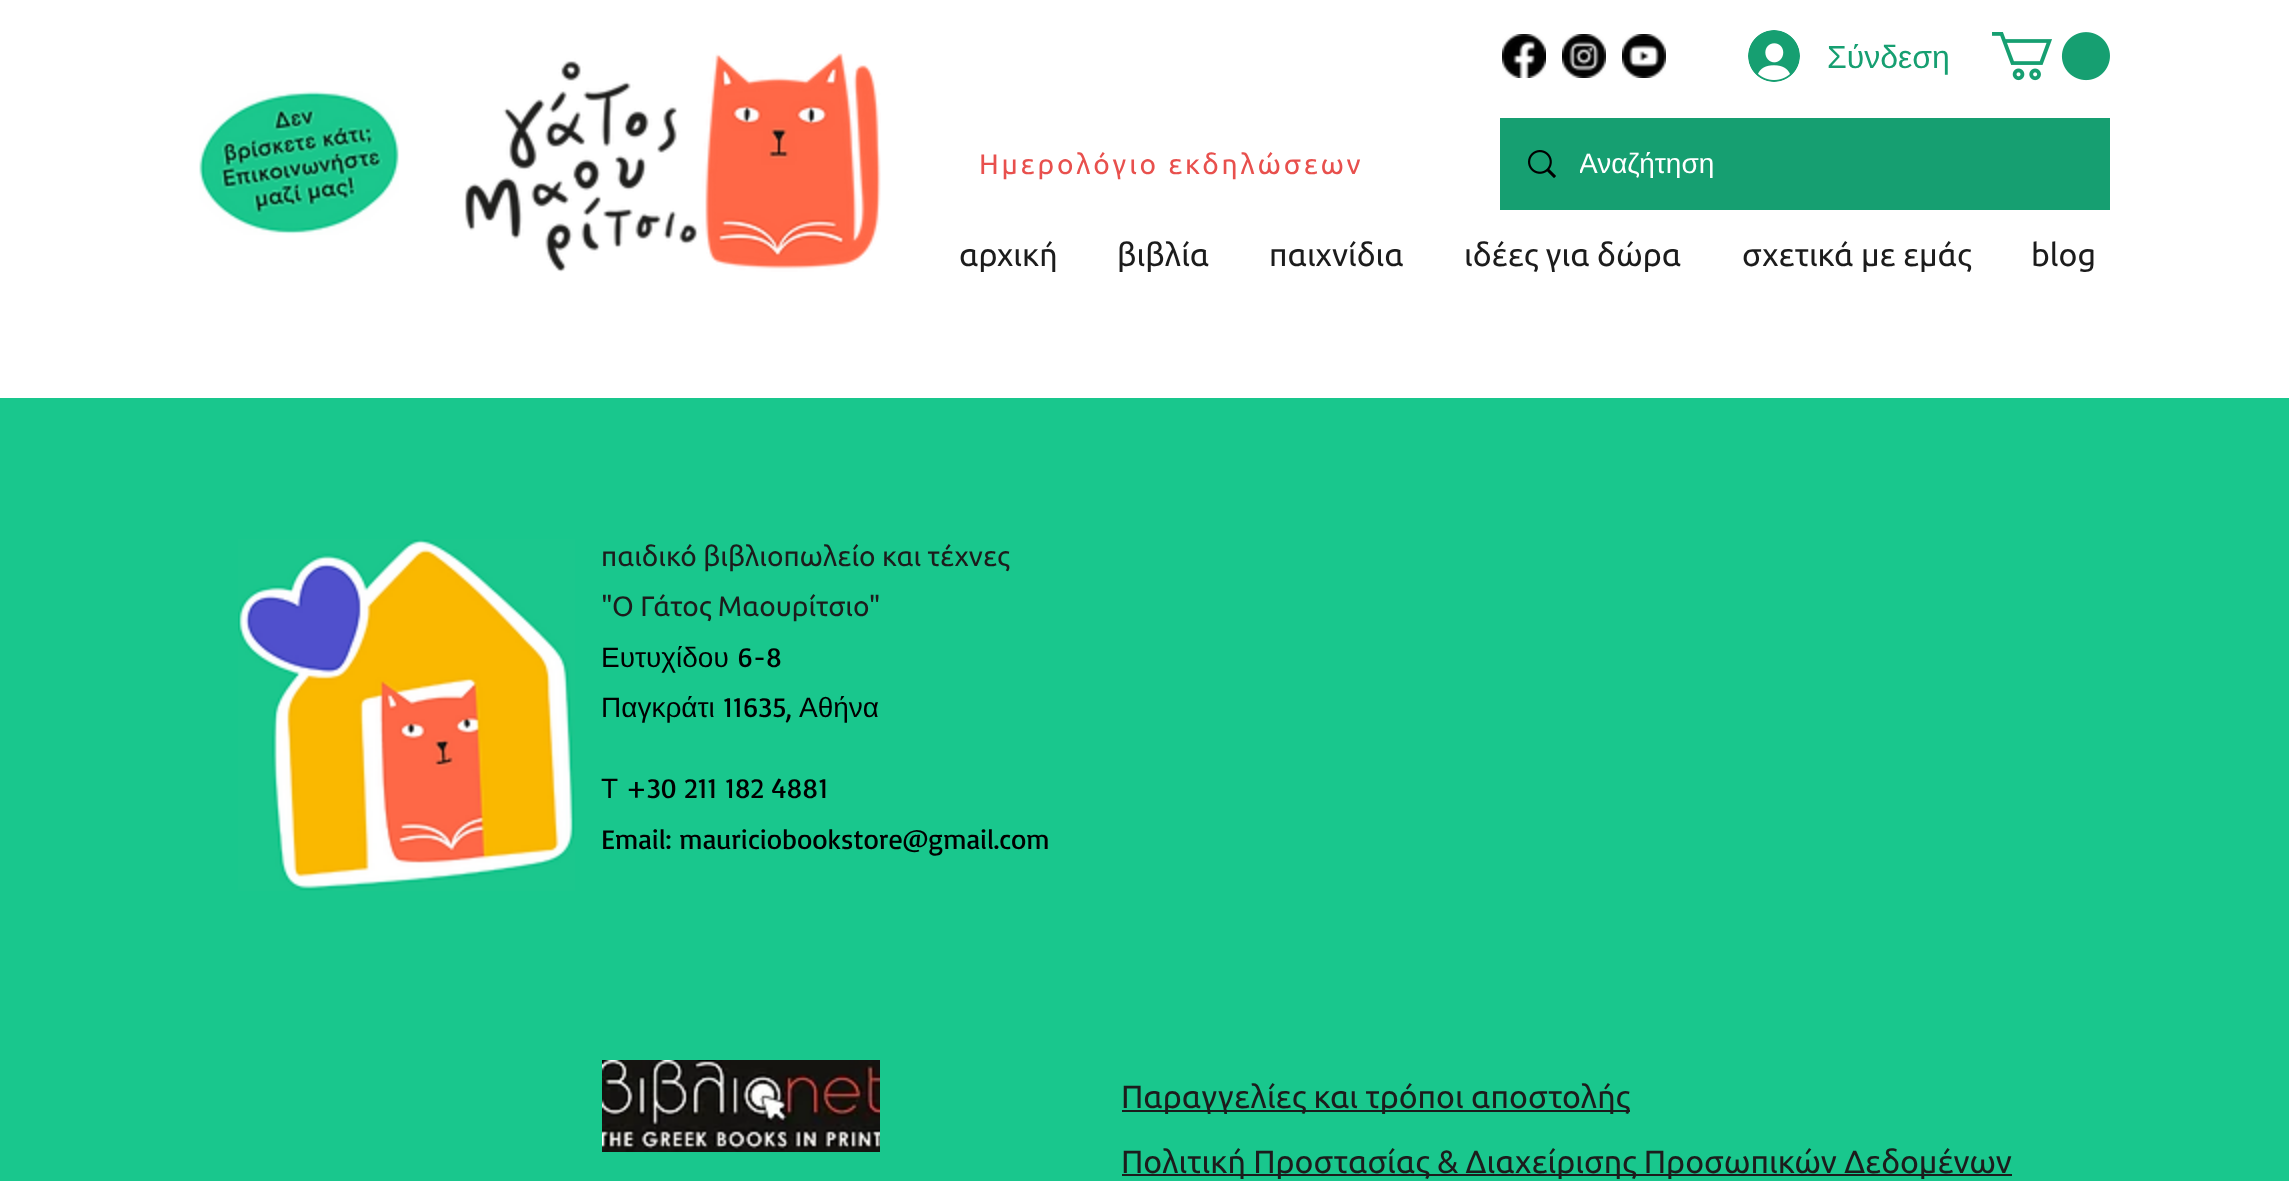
<!DOCTYPE html>
<meta charset="utf-8">
<style>body { margin: 0 } canvas { display: block }</style>
<canvas id="canvas" width="2289" height="1181"></canvas>
<img id="img1" src="images/1.png" hidden>
<img id="img2" src="images/2.png" hidden>
<img id="img3" src="images/3.png" hidden>
<img id="img4" src="images/4.png" hidden>
<img id="img5" src="images/5.png" hidden>
<img id="img6" src="images/6.png" hidden>
<img id="img7" src="images/7.png" hidden>
<img id="img8" src="images/8.png" hidden>
<img id="img9" src="images/9.png" hidden>
<img id="img10" src="images/10.png" hidden>
<script>
window.onload = function () {
    const canvas = document.getElementById('canvas');
    const context = canvas.getContext('2d');
    context.miterLimit = 4;
    context.fontKerning = 'normal';

    context.fillStyle = 'rgb(255, 255, 255)';
    context.fillRect(0, 0, 2289, 1181);
    context.drawImage(document.getElementById('img1'), 199, 91, 200, 144);
    context.drawImage(document.getElementById('img2'), 464, 53, 417, 219);
    context.drawImage(document.getElementById('img3'), 1502, 34, 44, 44);
    context.drawImage(document.getElementById('img4'), 1562, 34, 44, 44);
    context.drawImage(document.getElementById('img5'), 1622, 34, 44, 44);
    context.drawImage(document.getElementById('img6'), 1748, 30, 52, 52);
    context.drawImage(document.getElementById('img7'), 1992, 32, 118, 49);
    context.fillStyle = 'rgb(22, 159, 113)';
    context.fillRect(1500, 118, 610, 92);
    context.drawImage(document.getElementById('img8'), 1528, 150, 28, 28);
    context.fillStyle = 'rgb(25, 199, 141)';
    context.fillRect(0, 398, 2289, 783);
    context.drawImage(document.getElementById('img9'), 238, 539, 337, 352);
    context.drawImage(document.getElementById('img10'), 602, 1060, 278, 92);
    context.fillStyle = 'rgb(28, 28, 28)';
    context.fillRect(1122, 1110, 508, 2);
    context.fillRect(1122, 1174, 890, 2);
    context.font = '32px Liberation Sans';
    context.fillStyle = 'rgb(22, 159, 113)';
    context.fillText('Σύνδεση', 1827, 68);
    context.letterSpacing = '2.8px';
    context.font = '28px Ubuntu';
    context.fillStyle = 'rgb(232, 80, 77)';
    context.fillText('Ημερολόγιο εκδηλώσεων', 979, 174);
    context.save();
    context.beginPath();
    context.rect(1580, 146, 446, 32);
    context.clip();
    context.letterSpacing = '0px';
    context.font = '28px Liberation Sans';
    context.fillStyle = 'rgb(255, 255, 255)';
    context.fillText('Αναζήτηση', 1579, 173);
    context.restore();
    context.letterSpacing = '0px';
    context.font = '32px Ubuntu';
    context.fillStyle = 'rgb(28, 28, 28)';
    context.fillText('αρχική', 959, 266);
    context.fillText('βιβλία', 1117, 266);
    context.fillText('παιχνίδια', 1269, 266);
    context.fillText('ιδέες για δώρα', 1464, 266);
    context.fillText('σχετικά με εμάς', 1742, 266);
    context.fillText('blog', 2031, 266);
    context.font = '28px Ubuntu';
    context.fillText('παιδικό βιβλιοπωλείο και τέχνες', 601, 566);
    context.fillText('"Ο Γάτος Μαουρίτσιο"', 601, 616);
    context.font = '28px Liberation Sans';
    context.fillStyle = 'rgb(0, 0, 0)';
    context.fillText('Ευτυχίδου', 601, 667);
    context.font = '28px Basic';
    context.fillText('6-8', 737, 667);
    context.font = '28px Liberation Sans';
    context.fillText('Παγκράτι', 601, 717);
    context.font = '28px Basic';
    context.fillText('11635,', 723, 717);
    context.font = '28px Liberation Sans';
    context.fillText('Αθήνα', 799, 717);
    context.fillText('Τ', 601, 798);
    context.font = '28px Basic';
    context.fillText('+30 211 182 4881', 626, 798);
    context.fillText('Email: mauriciobookstore@gmail.com', 601, 849);
    context.font = '32px Ubuntu';
    context.fillStyle = 'rgb(28, 28, 28)';
    context.fillText('Παραγγελίες και τρόποι αποστολής', 1121, 1108);
    context.fillText('Πολιτική Προστασίας & Διαχείρισης Προσωπικών Δεδομένων', 1121, 1173);
};
</script>
